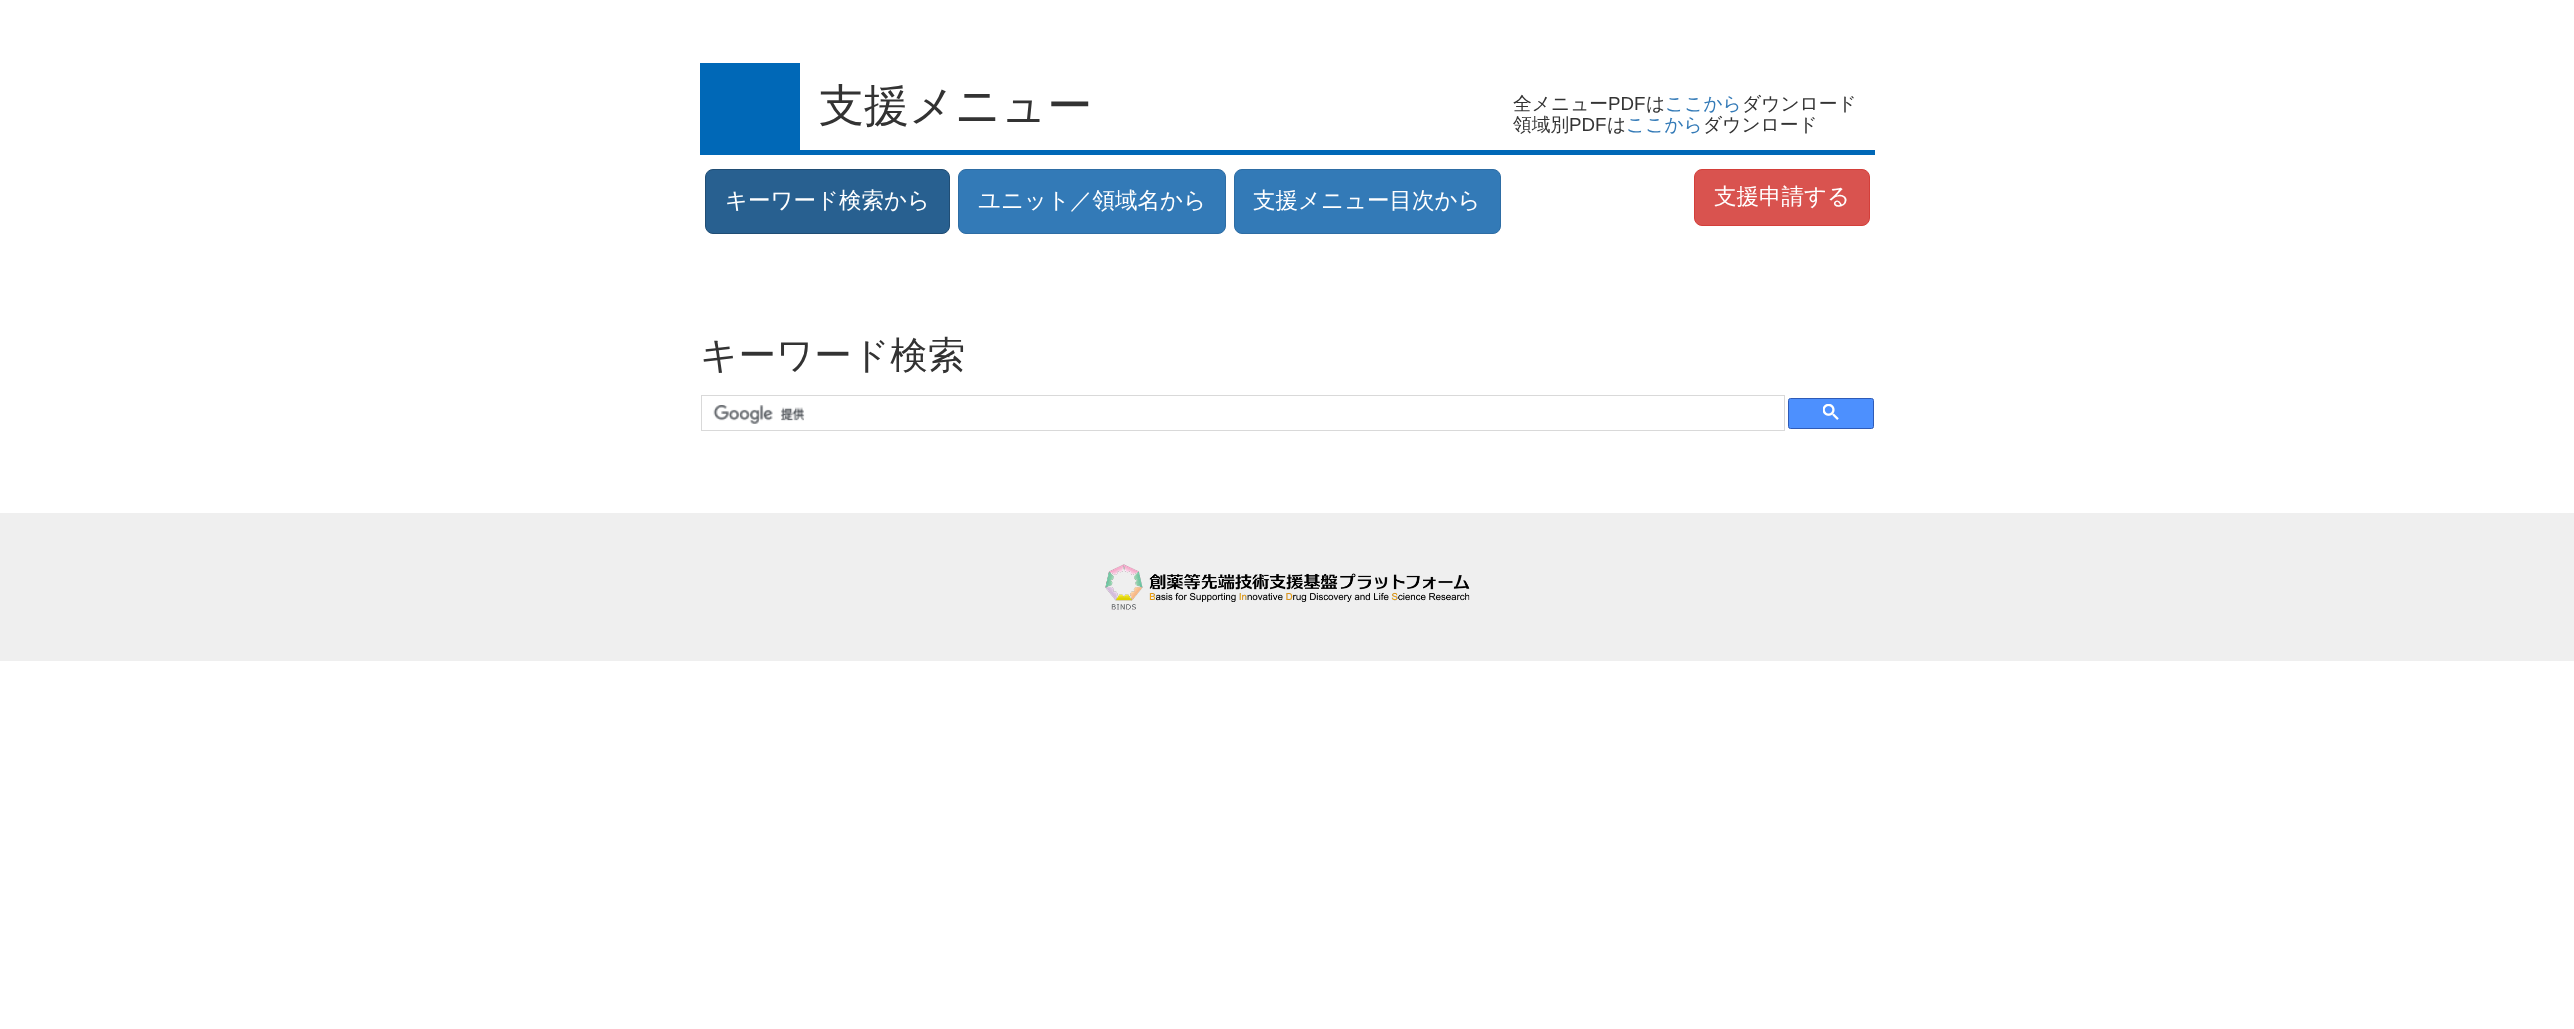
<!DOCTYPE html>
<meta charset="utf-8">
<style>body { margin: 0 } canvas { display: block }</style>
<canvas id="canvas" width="2574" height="1029"></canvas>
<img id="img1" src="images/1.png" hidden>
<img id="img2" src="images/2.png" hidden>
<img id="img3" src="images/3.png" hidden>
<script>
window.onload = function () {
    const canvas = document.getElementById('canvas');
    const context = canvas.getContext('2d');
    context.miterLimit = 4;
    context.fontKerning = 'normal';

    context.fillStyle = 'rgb(255, 255, 255)';
    context.fillRect(0, 0, 2574, 1029);
    context.fillStyle = 'rgb(0, 104, 183)';
    context.fillRect(800, 150, 1075, 5);
    context.fillRect(700, 63, 100, 92);
    context.fillStyle = 'rgb(40, 96, 144)';
    context.beginPath();
    context.roundRect(705.5, 169.5, 244, 64, 7.5);
    context.fill();
    context.strokeStyle = 'rgb(32, 77, 116)';
    context.stroke();
    context.fillStyle = 'rgb(51, 122, 183)';
    context.beginPath();
    context.roundRect(958.5, 169.5, 267, 64, 7.5);
    context.fill();
    context.strokeStyle = 'rgb(46, 109, 164)';
    context.stroke();
    context.beginPath();
    context.roundRect(1234.5, 169.5, 266, 64, 7.5);
    context.fill();
    context.stroke();
    context.fillStyle = 'rgb(217, 83, 79)';
    context.beginPath();
    context.roundRect(1694.5, 169.5, 175, 56, 7.5);
    context.fill();
    context.strokeStyle = 'rgb(212, 63, 58)';
    context.stroke();
    context.strokeStyle = 'rgb(217, 217, 217)';
    context.strokeRect(701.5, 395.5, 1083, 35);
    context.drawImage(document.getElementById('img1'), 713, 405, 92, 19);
    context.fillStyle = 'rgb(77, 144, 254)';
    context.beginPath();
    context.roundRect(1788.5, 398.5, 85, 30, 2);
    context.fill();
    context.strokeStyle = 'rgb(47, 91, 183)';
    context.stroke();
    context.drawImage(document.getElementById('img2'), 1823, 404, 16, 16);
    context.fillStyle = 'rgb(239, 239, 239)';
    context.fillRect(0, 513, 2574, 148);
    context.drawImage(document.getElementById('img3'), 1105, 564, 365, 46);
    context.font = '500 45px WenQuanYi Zen Hei';
    context.fillStyle = 'rgb(51, 51, 51)';
    context.fillText('支援メニュー', 819, 121);
    context.font = '500 18.75px WenQuanYi Zen Hei';
    context.fillText('全メニュー', 1513, 110);
    context.font = '18.75px Liberation Sans';
    context.fillText('PDF', 1608, 110);
    context.font = '500 18.75px WenQuanYi Zen Hei';
    context.fillText('は', 1646, 110);
    context.fillStyle = 'rgb(51, 122, 183)';
    context.fillText('ここから', 1665, 110);
    context.fillStyle = 'rgb(51, 51, 51)';
    context.fillText('ダウンロード', 1742, 110);
    context.fillText('領域別', 1513, 131);
    context.font = '18.75px Liberation Sans';
    context.fillText('PDF', 1569, 131);
    context.font = '500 18.75px WenQuanYi Zen Hei';
    context.fillText('は', 1607, 131);
    context.fillStyle = 'rgb(51, 122, 183)';
    context.fillText('ここから', 1626, 131);
    context.fillStyle = 'rgb(51, 51, 51)';
    context.fillText('ダウンロード', 1703, 131);
    context.font = '500 22.5px WenQuanYi Zen Hei';
    context.fillStyle = 'rgb(255, 255, 255)';
    context.fillText('キーワード検索から', 725, 208);
    context.fillText('ユニット／領域名から', 978, 208);
    context.fillText('支援メニュー目次から', 1253, 208);
    context.fillText('支援申請する', 1714, 204);
    context.font = '500 37.5px WenQuanYi Zen Hei';
    context.fillStyle = 'rgb(51, 51, 51)';
    context.fillText('キーワード検索', 700, 368);
};
</script>
